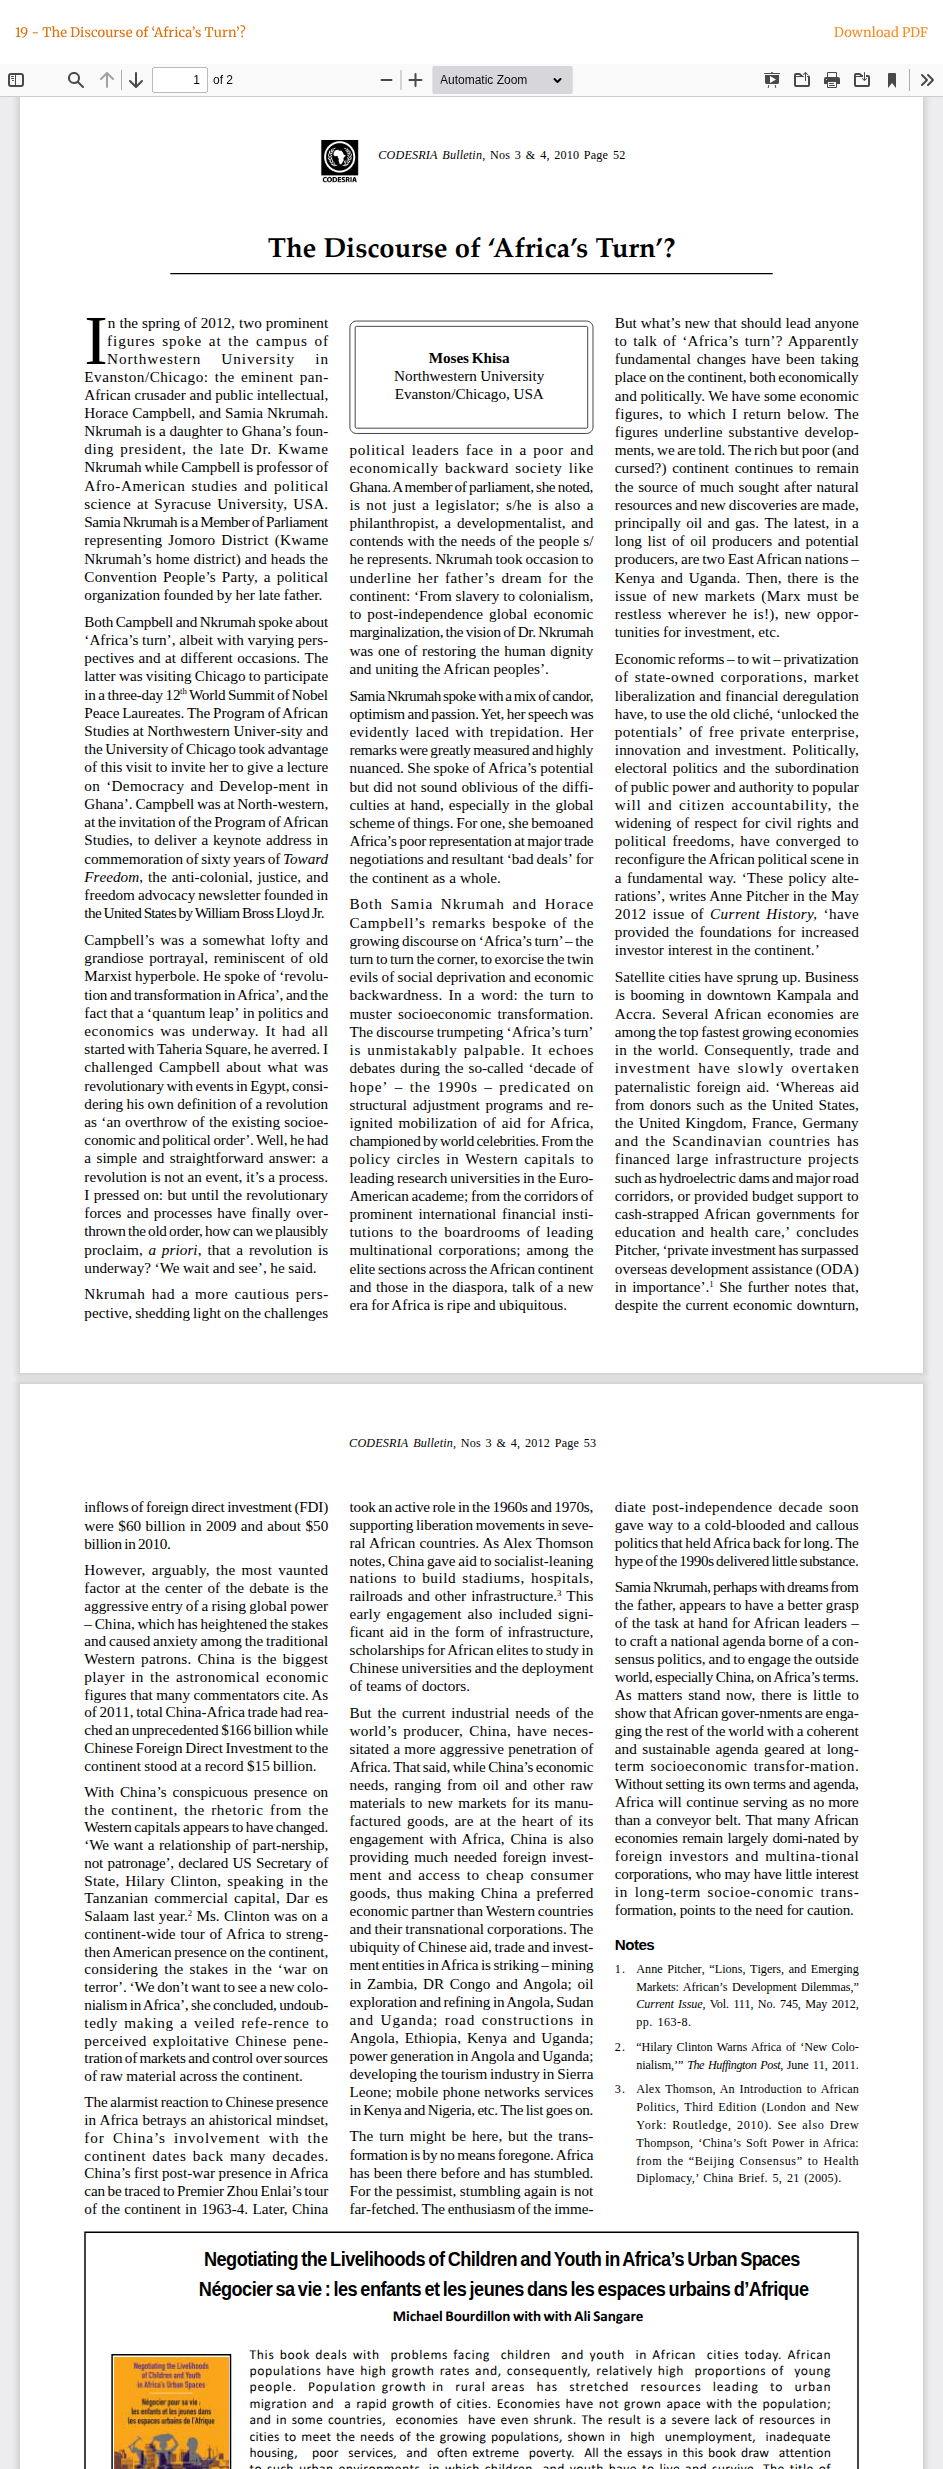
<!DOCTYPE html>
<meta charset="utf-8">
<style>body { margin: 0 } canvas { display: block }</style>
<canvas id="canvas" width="943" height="2469"></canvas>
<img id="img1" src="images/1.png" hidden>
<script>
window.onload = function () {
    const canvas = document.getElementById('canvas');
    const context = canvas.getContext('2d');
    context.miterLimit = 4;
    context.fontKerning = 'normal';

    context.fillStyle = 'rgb(255, 255, 255)';
    context.fillRect(0, 0, 943, 2469);
    context.drawImage(document.getElementById('img1'), 0, 64, 943, 2405);
    context.letterSpacing = '0.1px';
    context.font = '300 13px Merriweather';
    context.fillStyle = 'rgb(220, 112, 7)';
    context.fillText('19 - The Discourse of ‘Africa’s Turn’?', 15, 37);
    context.fillStyle = 'rgb(248, 138, 31)';
    context.fillText('Download PDF', 834, 37);
};
</script>
